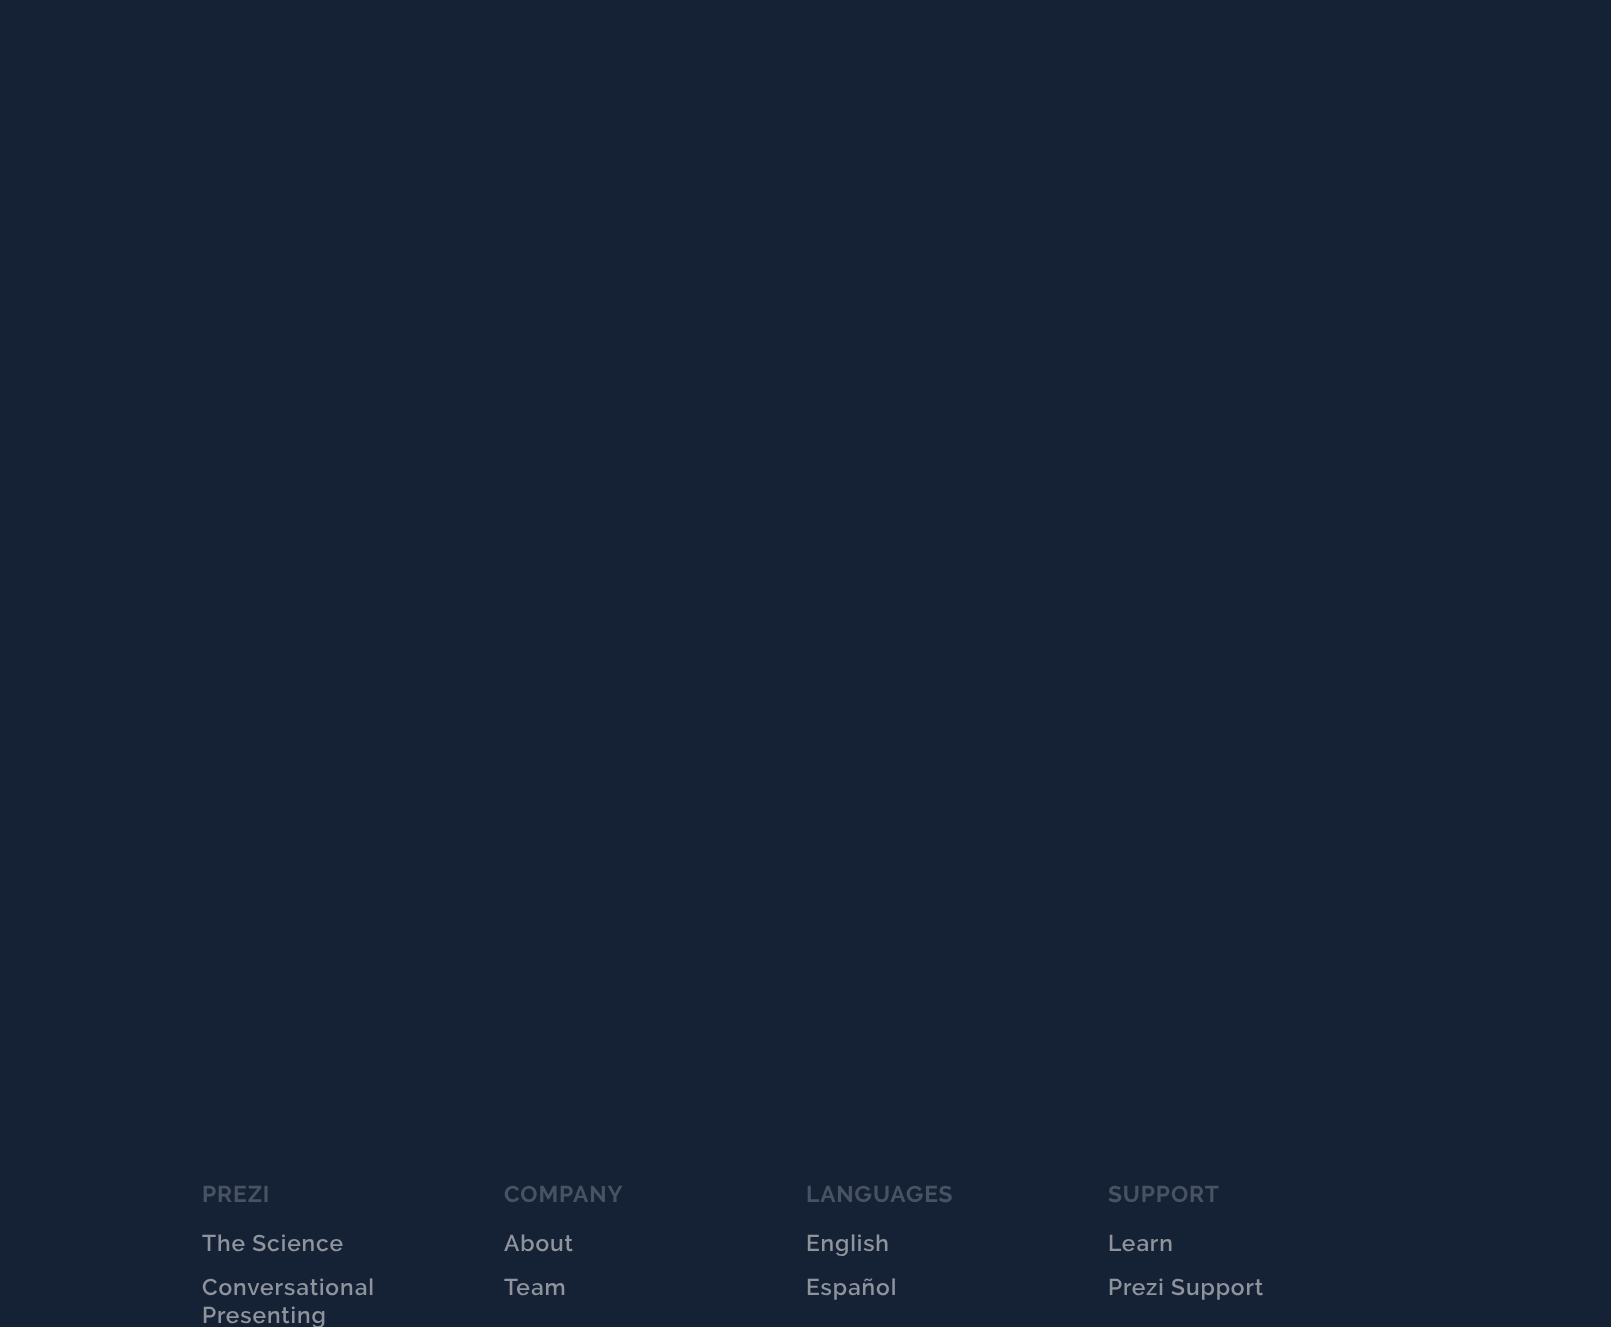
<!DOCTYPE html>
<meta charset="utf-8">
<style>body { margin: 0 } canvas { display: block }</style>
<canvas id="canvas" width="1611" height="1327"></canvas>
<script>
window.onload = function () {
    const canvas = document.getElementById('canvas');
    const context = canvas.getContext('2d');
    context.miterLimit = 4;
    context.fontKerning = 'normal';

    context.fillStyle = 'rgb(21, 34, 53)';
    context.fillRect(0, 0, 1611, 1327);
    context.letterSpacing = '0.9px';
    context.font = 'bold 22.75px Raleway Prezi';
    context.fillStyle = 'rgb(71, 82, 98)';
    context.fillText('PREZI', 202, 1202);
    context.font = '600 22.75px Raleway Prezi';
    context.fillStyle = 'rgb(142, 147, 156)';
    context.fillText('The Science', 202, 1251);
    context.fillText('Conversational', 202, 1295);
    context.fillText('Presenting', 202, 1323);
    context.font = 'bold 22.75px Raleway Prezi';
    context.fillStyle = 'rgb(71, 82, 98)';
    context.fillText('COMPANY', 504, 1202);
    context.font = '600 22.75px Raleway Prezi';
    context.fillStyle = 'rgb(142, 147, 156)';
    context.fillText('About', 504, 1251);
    context.fillText('Team', 504, 1295);
    context.font = 'bold 22.75px Raleway Prezi';
    context.fillStyle = 'rgb(71, 82, 98)';
    context.fillText('LANGUAGES', 806, 1202);
    context.font = '600 22.75px Raleway Prezi';
    context.fillStyle = 'rgb(142, 147, 156)';
    context.fillText('English', 806, 1251);
    context.fillText('Español', 806, 1295);
    context.font = 'bold 22.75px Raleway Prezi';
    context.fillStyle = 'rgb(71, 82, 98)';
    context.fillText('SUPPORT', 1108, 1202);
    context.font = '600 22.75px Raleway Prezi';
    context.fillStyle = 'rgb(142, 147, 156)';
    context.fillText('Learn', 1108, 1251);
    context.fillText('Prezi Support', 1108, 1295);
};
</script>
